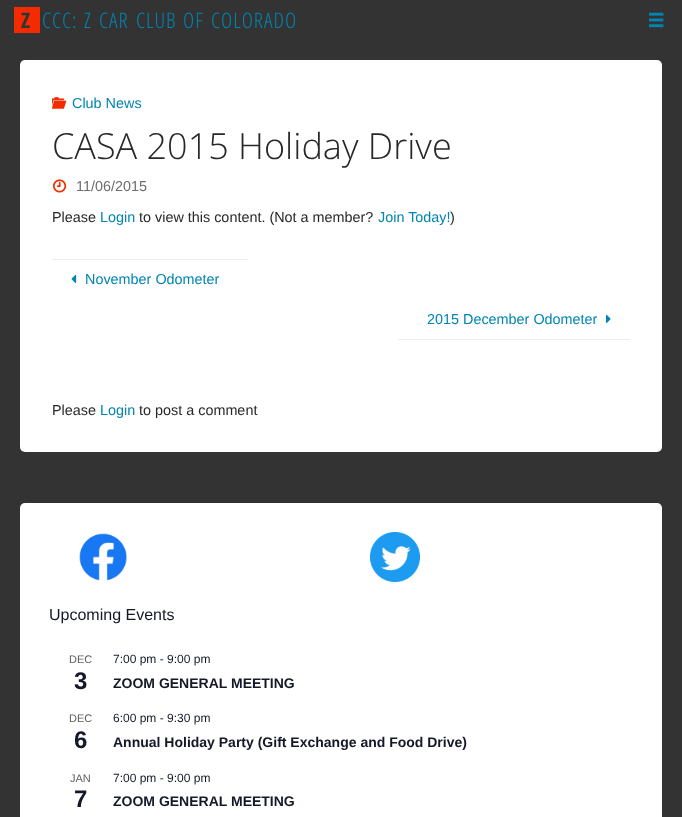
<!DOCTYPE html>
<meta charset="utf-8">
<style>body { margin: 0 } canvas { display: block }</style>
<canvas id="canvas" width="682" height="817"></canvas>
<img id="img1" src="images/1.png" hidden>
<img id="img2" src="images/2.png" hidden>
<img id="img3" src="images/3.png" hidden>
<img id="img4" src="images/4.png" hidden>
<img id="img5" src="images/5.png" hidden>
<img id="img6" src="images/6.png" hidden>
<img id="img7" src="images/7.png" hidden>
<script>
window.onload = function () {
    const canvas = document.getElementById('canvas');
    const context = canvas.getContext('2d');
    context.miterLimit = 4;
    context.fontKerning = 'normal';

    context.fillStyle = 'rgb(51, 51, 51)';
    context.fillRect(0, 0, 682, 817);
    context.fillStyle = 'rgb(244, 43, 0)';
    context.fillRect(14, 7, 26, 26);
    context.drawImage(document.getElementById('img1'), 649, 12, 15, 16);
    context.fillStyle = 'rgb(255, 255, 255)';
    context.beginPath();
    context.roundRect(20, 60, 642, 392, 5);
    context.fill();
    context.drawImage(document.getElementById('img2'), 52, 97, 15, 12);
    context.drawImage(document.getElementById('img3'), 53, 179, 14, 14);
    context.fillStyle = 'rgb(238, 238, 238)';
    context.fillRect(52, 259, 196, 1);
    context.drawImage(document.getElementById('img4'), 71, 274, 6, 9);
    context.drawImage(document.getElementById('img5'), 606, 314, 5, 9);
    context.fillRect(398, 339, 232, 1);
    context.fillStyle = 'rgb(255, 255, 255)';
    context.beginPath();
    context.roundRect(20, 503, 642, 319, 5);
    context.fill();
    context.drawImage(document.getElementById('img6'), 79, 533, 48, 48);
    context.drawImage(document.getElementById('img7'), 370, 532, 50, 50);
    context.letterSpacing = '1px';
    context.font = 'bold 21.5px Open Sans Condensed';
    context.fillStyle = 'rgb(51, 51, 51)';
    context.fillText('Z', 21, 28);
    context.font = '300 21.5px Open Sans Condensed';
    context.fillStyle = 'rgb(0, 133, 178)';
    context.fillText('CCC:', 42, 28);
    context.fillText('Z', 84, 28);
    context.fillText('CAR', 99, 28);
    context.fillText('CLUB', 136, 28);
    context.fillText('OF', 183, 28);
    context.fillText('COLORADO', 211, 28);
    context.letterSpacing = '0px';
    context.font = '14.4px Liberation Sans';
    context.fillText('Club News', 72, 108);
    context.font = '300 36px Open Sans';
    context.fillStyle = 'rgb(40, 40, 40)';
    context.fillText('CASA 2015 Holiday Drive', 52, 159);
    context.font = '14.4px Liberation Sans';
    context.fillStyle = 'rgb(109, 109, 109)';
    context.fillText('11/06/2015', 76, 191);
    context.fillStyle = 'rgb(40, 40, 40)';
    context.fillText('Please', 52, 222);
    context.fillStyle = 'rgb(0, 133, 178)';
    context.fillText('Login', 100, 222);
    context.fillStyle = 'rgb(40, 40, 40)';
    context.fillText('to view this content. (Not a member?', 139, 222);
    context.fillStyle = 'rgb(0, 133, 178)';
    context.fillText('Join Today!', 378, 222);
    context.fillStyle = 'rgb(40, 40, 40)';
    context.fillText(')', 450, 222);
    context.fillStyle = 'rgb(0, 133, 178)';
    context.fillText('November Odometer', 85, 284);
    context.fillText('2015 December Odometer', 427, 324);
    context.fillStyle = 'rgb(40, 40, 40)';
    context.fillText('Please', 52, 415);
    context.fillStyle = 'rgb(0, 133, 178)';
    context.fillText('Login', 100, 415);
    context.fillStyle = 'rgb(40, 40, 40)';
    context.fillText('to post a comment', 139, 415);
    context.font = '16px Liberation Sans';
    context.fillStyle = 'rgb(20, 24, 39)';
    context.fillText('Upcoming Events', 49, 620);
    context.font = '11px Liberation Sans';
    context.fillStyle = 'rgb(93, 93, 93)';
    context.fillText('DEC', 69, 663);
    context.font = 'bold 24px Liberation Sans';
    context.fillStyle = 'rgb(20, 24, 39)';
    context.fillText('3', 74, 689);
    context.font = '12px Liberation Sans';
    context.fillText('7:00 pm - 9:00 pm', 113, 663);
    context.font = 'bold 14px Liberation Sans';
    context.fillText('ZOOM GENERAL MEETING', 113, 688);
    context.font = '11px Liberation Sans';
    context.fillStyle = 'rgb(93, 93, 93)';
    context.fillText('DEC', 69, 722);
    context.font = 'bold 24px Liberation Sans';
    context.fillStyle = 'rgb(20, 24, 39)';
    context.fillText('6', 74, 748);
    context.font = '12px Liberation Sans';
    context.fillText('6:00 pm - 9:30 pm', 113, 722);
    context.font = 'bold 14px Liberation Sans';
    context.fillText('Annual Holiday Party (Gift Exchange and Food Drive)', 113, 747);
    context.font = '11px Liberation Sans';
    context.fillStyle = 'rgb(93, 93, 93)';
    context.fillText('JAN', 70, 782);
    context.font = 'bold 24px Liberation Sans';
    context.fillStyle = 'rgb(20, 24, 39)';
    context.fillText('7', 74, 807);
    context.font = '12px Liberation Sans';
    context.fillText('7:00 pm - 9:00 pm', 113, 782);
    context.font = 'bold 14px Liberation Sans';
    context.fillText('ZOOM GENERAL MEETING', 113, 806);
};
</script>
